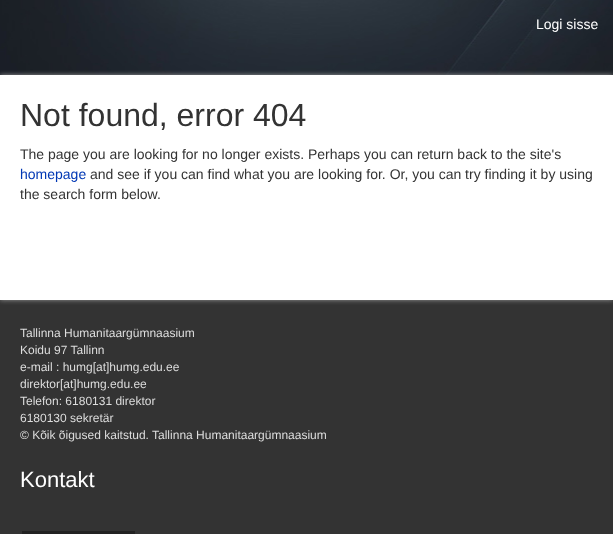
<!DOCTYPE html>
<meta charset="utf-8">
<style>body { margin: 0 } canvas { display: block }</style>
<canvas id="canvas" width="613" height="534"></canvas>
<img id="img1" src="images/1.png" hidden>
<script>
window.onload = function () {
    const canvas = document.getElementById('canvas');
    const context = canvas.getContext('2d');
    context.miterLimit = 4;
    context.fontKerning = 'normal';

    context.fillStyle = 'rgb(255, 255, 255)';
    context.fillRect(0, 0, 613, 534);
    context.drawImage(document.getElementById('img1'), 0, 0, 613, 75);
    context.fillStyle = 'rgb(51, 51, 51)';
    context.fillRect(0, 300, 613, 234);
    context.fillStyle = 'rgb(153, 153, 153)';
    context.filter = 'blur(2.5px)';
    context.beginPath();
    context.rect(0, 75, 613, 225);
    context.fill();
    context.filter = 'none';
    context.fillStyle = 'rgb(255, 255, 255)';
    context.fillRect(0, 75, 613, 225);
    context.fillStyle = 'rgb(34, 34, 34)';
    context.fillRect(22, 531, 113, 3);
    context.font = '14px Liberation Sans';
    context.fillStyle = 'rgb(255, 255, 255)';
    context.fillText('Logi sisse', 536, 29);
    context.font = '32px Liberation Sans';
    context.fillStyle = 'rgb(51, 51, 51)';
    context.fillText('Not found, error 404', 20, 126);
    context.font = '14px Liberation Sans';
    context.fillText('The page you are looking for no longer exists. Perhaps you can return back to the site\'s', 20, 159);
    context.fillStyle = 'rgb(0, 55, 180)';
    context.fillText('homepage', 20, 179);
    context.fillStyle = 'rgb(51, 51, 51)';
    context.fillText('and see if you can find what you are looking for. Or, you can try finding it by using', 90, 179);
    context.fillText('the search form below.', 20, 199);
    context.font = '12px Liberation Sans';
    context.fillStyle = 'rgb(221, 221, 221)';
    context.fillText('Tallinna Humanitaargümnaasium', 20, 337);
    context.fillText('Koidu 97 Tallinn', 20, 354);
    context.fillText('e-mail : humg[at]humg.edu.ee', 20, 371);
    context.fillText('direktor[at]humg.edu.ee', 20, 388);
    context.fillText('Telefon: 6180131 direktor', 20, 405);
    context.fillText('6180130 sekretär', 20, 422);
    context.fillText('© Kõik õigused kaitstud. Tallinna Humanitaargümnaasium', 20, 439);
    context.font = '22px Liberation Sans';
    context.fillStyle = 'rgb(255, 255, 255)';
    context.fillText('Kontakt', 20, 487);
};
</script>
